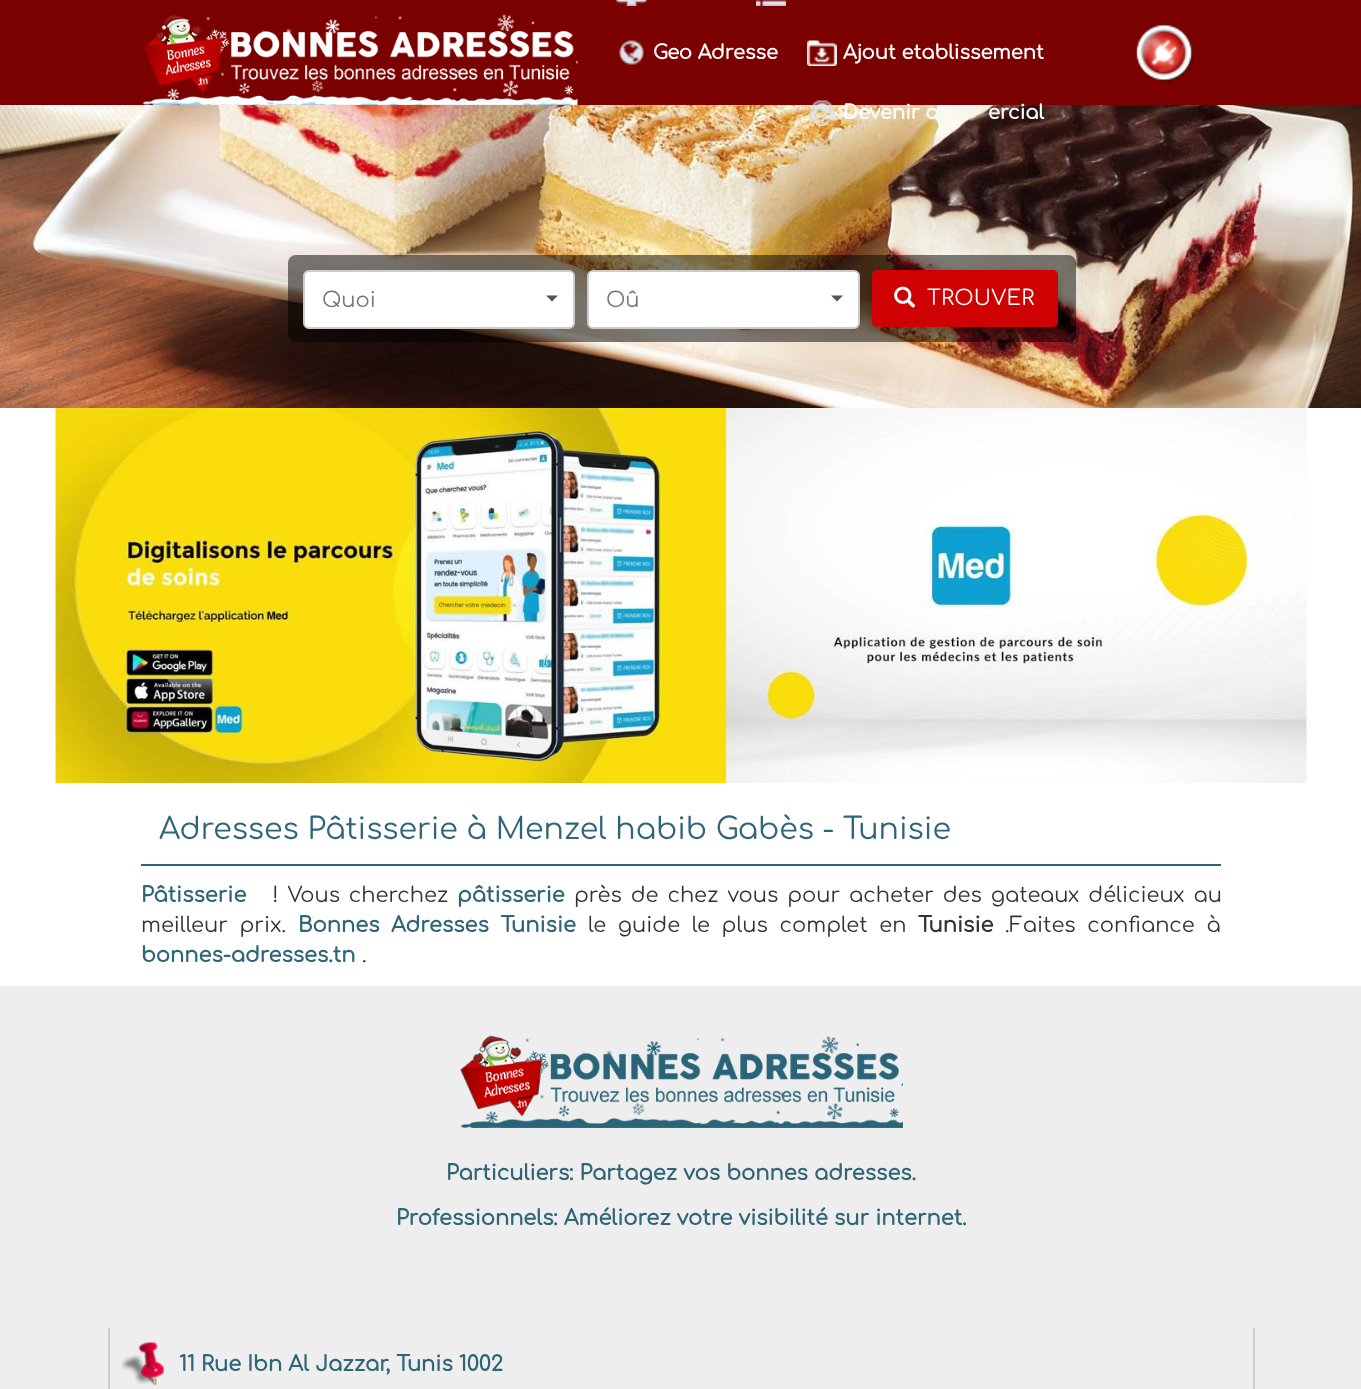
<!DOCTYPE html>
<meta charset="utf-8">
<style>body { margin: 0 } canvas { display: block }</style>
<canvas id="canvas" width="1361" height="1389"></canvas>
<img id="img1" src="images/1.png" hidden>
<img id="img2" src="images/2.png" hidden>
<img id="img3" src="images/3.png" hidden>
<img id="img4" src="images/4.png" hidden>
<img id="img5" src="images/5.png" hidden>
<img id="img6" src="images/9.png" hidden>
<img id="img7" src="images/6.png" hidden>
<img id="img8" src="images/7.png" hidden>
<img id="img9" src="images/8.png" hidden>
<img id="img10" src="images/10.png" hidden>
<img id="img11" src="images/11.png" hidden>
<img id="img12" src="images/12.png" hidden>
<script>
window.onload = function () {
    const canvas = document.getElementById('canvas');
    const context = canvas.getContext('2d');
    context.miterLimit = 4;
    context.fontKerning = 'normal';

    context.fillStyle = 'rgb(255, 255, 255)';
    context.fillRect(0, 0, 1361, 1389);
    context.fillStyle = 'rgb(123, 0, 0)';
    context.fillRect(0, 0, 1361, 105);
    context.drawImage(document.getElementById('img1'), 142, 14, 436, 91);
    context.drawImage(document.getElementById('img2'), 616, 0, 31, 6);
    context.drawImage(document.getElementById('img3'), 756, 0, 30, 6);
    context.drawImage(document.getElementById('img4'), 619, 40, 25, 25);
    context.drawImage(document.getElementById('img5'), 807, 40, 30, 26);
    context.drawImage(document.getElementById('img6'), 0, 105, 1361, 303);
    context.drawImage(document.getElementById('img7'), 809, 100, 26, 26);
    context.drawImage(document.getElementById('img8'), 1135, 24, 59, 58);
    context.fillStyle = 'rgba(0, 0, 0, 0.5)';
    context.beginPath();
    context.roundRect(288, 255, 788, 87, 8);
    context.fill();
    context.fillStyle = 'rgb(255, 255, 255)';
    context.beginPath();
    context.roundRect(304, 271, 270, 57, 5);
    context.fill();
    context.strokeStyle = 'rgb(204, 204, 204)';
    context.lineWidth = 2;
    context.stroke();
    context.fillStyle = 'rgb(85, 85, 85)';
    context.beginPath();
    context.moveTo(546, 295.5);
    context.lineTo(558, 295.5);
    context.lineTo(552, 301.5);
    context.closePath();
    context.fill();
    context.fillStyle = 'rgb(255, 255, 255)';
    context.beginPath();
    context.roundRect(588, 271, 271, 57, 5);
    context.fill();
    context.stroke();
    context.fillStyle = 'rgb(85, 85, 85)';
    context.beginPath();
    context.moveTo(831, 295.5);
    context.lineTo(843, 295.5);
    context.lineTo(837, 301.5);
    context.closePath();
    context.fill();
    context.fillStyle = 'rgba(0, 0, 0, 0.26)';
    context.filter = 'blur(4px)';
    context.beginPath();
    context.roundRect(872, 273, 186, 57, 5);
    context.fill();
    context.filter = 'none';
    context.fillStyle = 'rgb(206, 2, 2)';
    context.beginPath();
    context.roundRect(872, 270, 186, 57, 5);
    context.fill();
    context.drawImage(document.getElementById('img9'), 894, 286, 22, 22);
    context.drawImage(document.getElementById('img10'), 55, 408, 1252, 375);
    context.fillStyle = 'rgb(48, 101, 120)';
    context.fillRect(141, 864, 1080, 2);
    context.fillStyle = 'rgb(238, 238, 238)';
    context.fillRect(0, 986, 1361, 403);
    context.drawImage(document.getElementById('img11'), 460, 1035, 443, 93);
    context.fillStyle = 'rgb(204, 204, 204)';
    context.fillRect(108, 1328, 2, 61);
    context.drawImage(document.getElementById('img12'), 121, 1342, 43, 44);
    context.fillRect(1253, 1328, 2, 61);
    context.font = 'bold 19.5px Comfortaa';
    context.fillStyle = 'rgb(255, 255, 255)';
    context.fillText('Geo Adresse', 653, 59);
    context.fillText('Ajout etablissement', 843, 59);
    context.fillText('Devenir c', 843, 119);
    context.fillText('ercial', 988, 119);
    context.font = '21px Comfortaa';
    context.fillStyle = 'rgb(119, 119, 119)';
    context.fillText('Quoi', 322, 307);
    context.fillText('Oû', 606, 307);
    context.letterSpacing = '0.25px';
    context.fillStyle = 'rgb(255, 255, 255)';
    context.fillText('TROUVER', 927, 305);
    context.letterSpacing = '0px';
    context.font = '30px Comfortaa';
    context.fillStyle = 'rgb(48, 101, 120)';
    context.fillText('Adresses Pâtisserie à Menzel habib Gabès - Tunisie', 159, 839);
    context.font = 'bold 21px Comfortaa';
    context.fillText('Pâtisserie', 141, 902);
    context.wordSpacing = '2.75px';
    context.font = '21px Comfortaa';
    context.fillStyle = 'rgb(51, 51, 51)';
    context.fillText('! Vous cherchez', 273, 902);
    context.wordSpacing = '0px';
    context.font = 'bold 21px Comfortaa';
    context.fillStyle = 'rgb(48, 101, 120)';
    context.fillText('pâtisserie', 457, 902);
    context.wordSpacing = '2.75px';
    context.font = '21px Comfortaa';
    context.fillStyle = 'rgb(51, 51, 51)';
    context.fillText('près de chez vous pour acheter des gateaux délicieux au', 574, 902);
    context.wordSpacing = '5.5px';
    context.fillText('meilleur prix.', 141, 932);
    context.font = 'bold 21px Comfortaa';
    context.fillStyle = 'rgb(48, 101, 120)';
    context.fillText('Bonnes Adresses Tunisie', 298, 932);
    context.font = '21px Comfortaa';
    context.fillStyle = 'rgb(51, 51, 51)';
    context.fillText('le guide le plus complet en', 588, 932);
    context.wordSpacing = '0px';
    context.font = 'bold 21px Comfortaa';
    context.fillText('Tunisie', 918, 932);
    context.wordSpacing = '5.5px';
    context.font = '21px Comfortaa';
    context.fillText('.Faites confiance à', 1005, 932);
    context.wordSpacing = '0px';
    context.font = 'bold 21px Comfortaa';
    context.fillStyle = 'rgb(48, 101, 120)';
    context.fillText('bonnes-adresses.tn', 141, 962);
    context.font = '21px Comfortaa';
    context.fillStyle = 'rgb(51, 51, 51)';
    context.fillText('.', 362, 962);
    context.font = 'bold 21px Comfortaa';
    context.fillStyle = 'rgb(48, 101, 120)';
    context.fillText('Particuliers: Partagez vos bonnes adresses.', 446, 1180);
    context.fillText('Professionnels: Améliorez votre visibilité sur internet.', 396, 1225);
    context.fillText('11 Rue Ibn Al Jazzar, Tunis 1002', 179, 1371);
};
</script>
